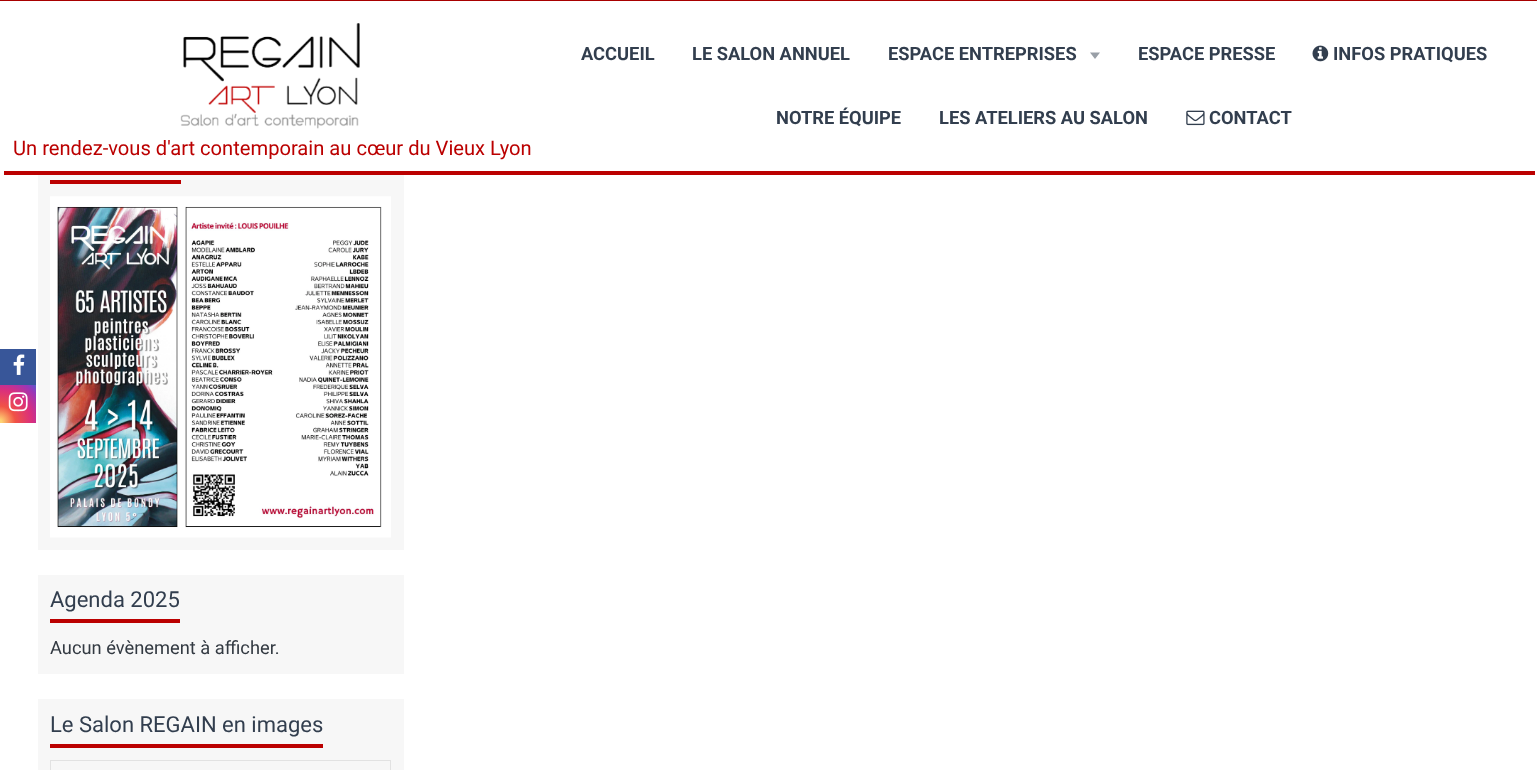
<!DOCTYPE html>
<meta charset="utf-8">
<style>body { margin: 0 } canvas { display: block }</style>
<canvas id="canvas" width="1537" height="770"></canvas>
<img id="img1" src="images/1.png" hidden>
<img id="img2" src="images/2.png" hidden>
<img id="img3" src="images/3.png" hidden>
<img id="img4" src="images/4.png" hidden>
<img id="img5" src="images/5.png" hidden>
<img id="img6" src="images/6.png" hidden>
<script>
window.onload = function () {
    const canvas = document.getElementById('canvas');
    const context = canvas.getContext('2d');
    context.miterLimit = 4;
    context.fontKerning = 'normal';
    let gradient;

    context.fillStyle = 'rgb(255, 255, 255)';
    context.fillRect(0, 0, 1537, 770);
    context.fillStyle = 'rgb(187, 0, 0)';
    context.fillRect(4, 171, 1531, 4);
    context.fillStyle = 'rgb(168, 0, 0)';
    context.fillRect(0, 0, 1537, 1);
    context.fillStyle = 'rgb(153, 159, 167)';
    context.beginPath();
    context.moveTo(1090, 52.5);
    context.lineTo(1100, 52.5);
    context.lineTo(1095, 59);
    context.closePath();
    context.fill();
    context.drawImage(document.getElementById('img1'), 1312, 45, 17, 17);
    context.drawImage(document.getElementById('img2'), 1186, 110, 19, 16);
    context.drawImage(document.getElementById('img3'), 180, 23, 180, 106);
    context.fillStyle = 'rgb(56, 86, 153)';
    context.fillRect(0, 349, 36, 36);
    context.drawImage(document.getElementById('img4'), 13, 354, 12, 21);
    gradient = context.createRadialGradient(-0.6, 422, 0, -0.6, 422, 53);
    gradient.addColorStop(0.04, 'rgb(254, 211, 115)');
    gradient.addColorStop(0.3, 'rgb(241, 82, 69)');
    gradient.addColorStop(0.62, 'rgb(217, 46, 127)');
    gradient.addColorStop(0.85, 'rgb(155, 54, 183)');
    gradient.addColorStop(1, 'rgb(81, 94, 207)');
    context.fillStyle = gradient;
    context.fillRect(0, 385, 36, 38);
    context.drawImage(document.getElementById('img5'), 8, 392, 20, 20);
    context.fillStyle = 'rgb(247, 247, 247)';
    context.fillRect(38, 175, 366, 375);
    context.fillStyle = 'rgb(187, 0, 0)';
    context.fillRect(50, 180, 131, 4);
    context.drawImage(document.getElementById('img6'), 50, 196, 341, 342);
    context.fillStyle = 'rgb(247, 247, 247)';
    context.fillRect(38, 575, 366, 99);
    context.fillStyle = 'rgb(187, 0, 0)';
    context.fillRect(50, 619, 130, 4);
    context.fillStyle = 'rgb(247, 247, 247)';
    context.fillRect(38, 699, 366, 71);
    context.fillStyle = 'rgb(187, 0, 0)';
    context.fillRect(50, 744, 273, 4);
    context.strokeStyle = 'rgb(226, 226, 226)';
    context.strokeRect(50.5, 760.5, 340, 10);
    context.font = 'bold 18.3px Roboto';
    context.fillStyle = 'rgb(50, 62, 78)';
    context.fillText('ACCUEIL', 581, 60);
    context.fillText('LE SALON ANNUEL', 692, 60);
    context.fillText('ESPACE ENTREPRISES', 888, 60);
    context.fillText('ESPACE PRESSE', 1138, 60);
    context.fillText('INFOS PRATIQUES', 1333, 60);
    context.fillText('NOTRE ÉQUIPE', 776, 124);
    context.fillText('LES ATELIERS AU SALON', 939, 124);
    context.fillText('CONTACT', 1209, 124);
    context.font = '20.15px Roboto';
    context.fillStyle = 'rgb(187, 0, 0)';
    context.fillText('Un rendez-vous d\'art contemporain au cœur du Vieux Lyon', 13, 155);
    context.font = '22px Roboto';
    context.fillStyle = 'rgb(50, 62, 78)';
    context.fillText('Agenda 2025', 50, 607);
    context.font = '18.3px Roboto';
    context.fillStyle = 'rgb(51, 58, 66)';
    context.fillText('Aucun évènement à afficher.', 50, 654);
    context.font = '22px Roboto';
    context.fillStyle = 'rgb(50, 62, 78)';
    context.fillText('Le Salon REGAIN en images', 50, 732);
};
</script>
